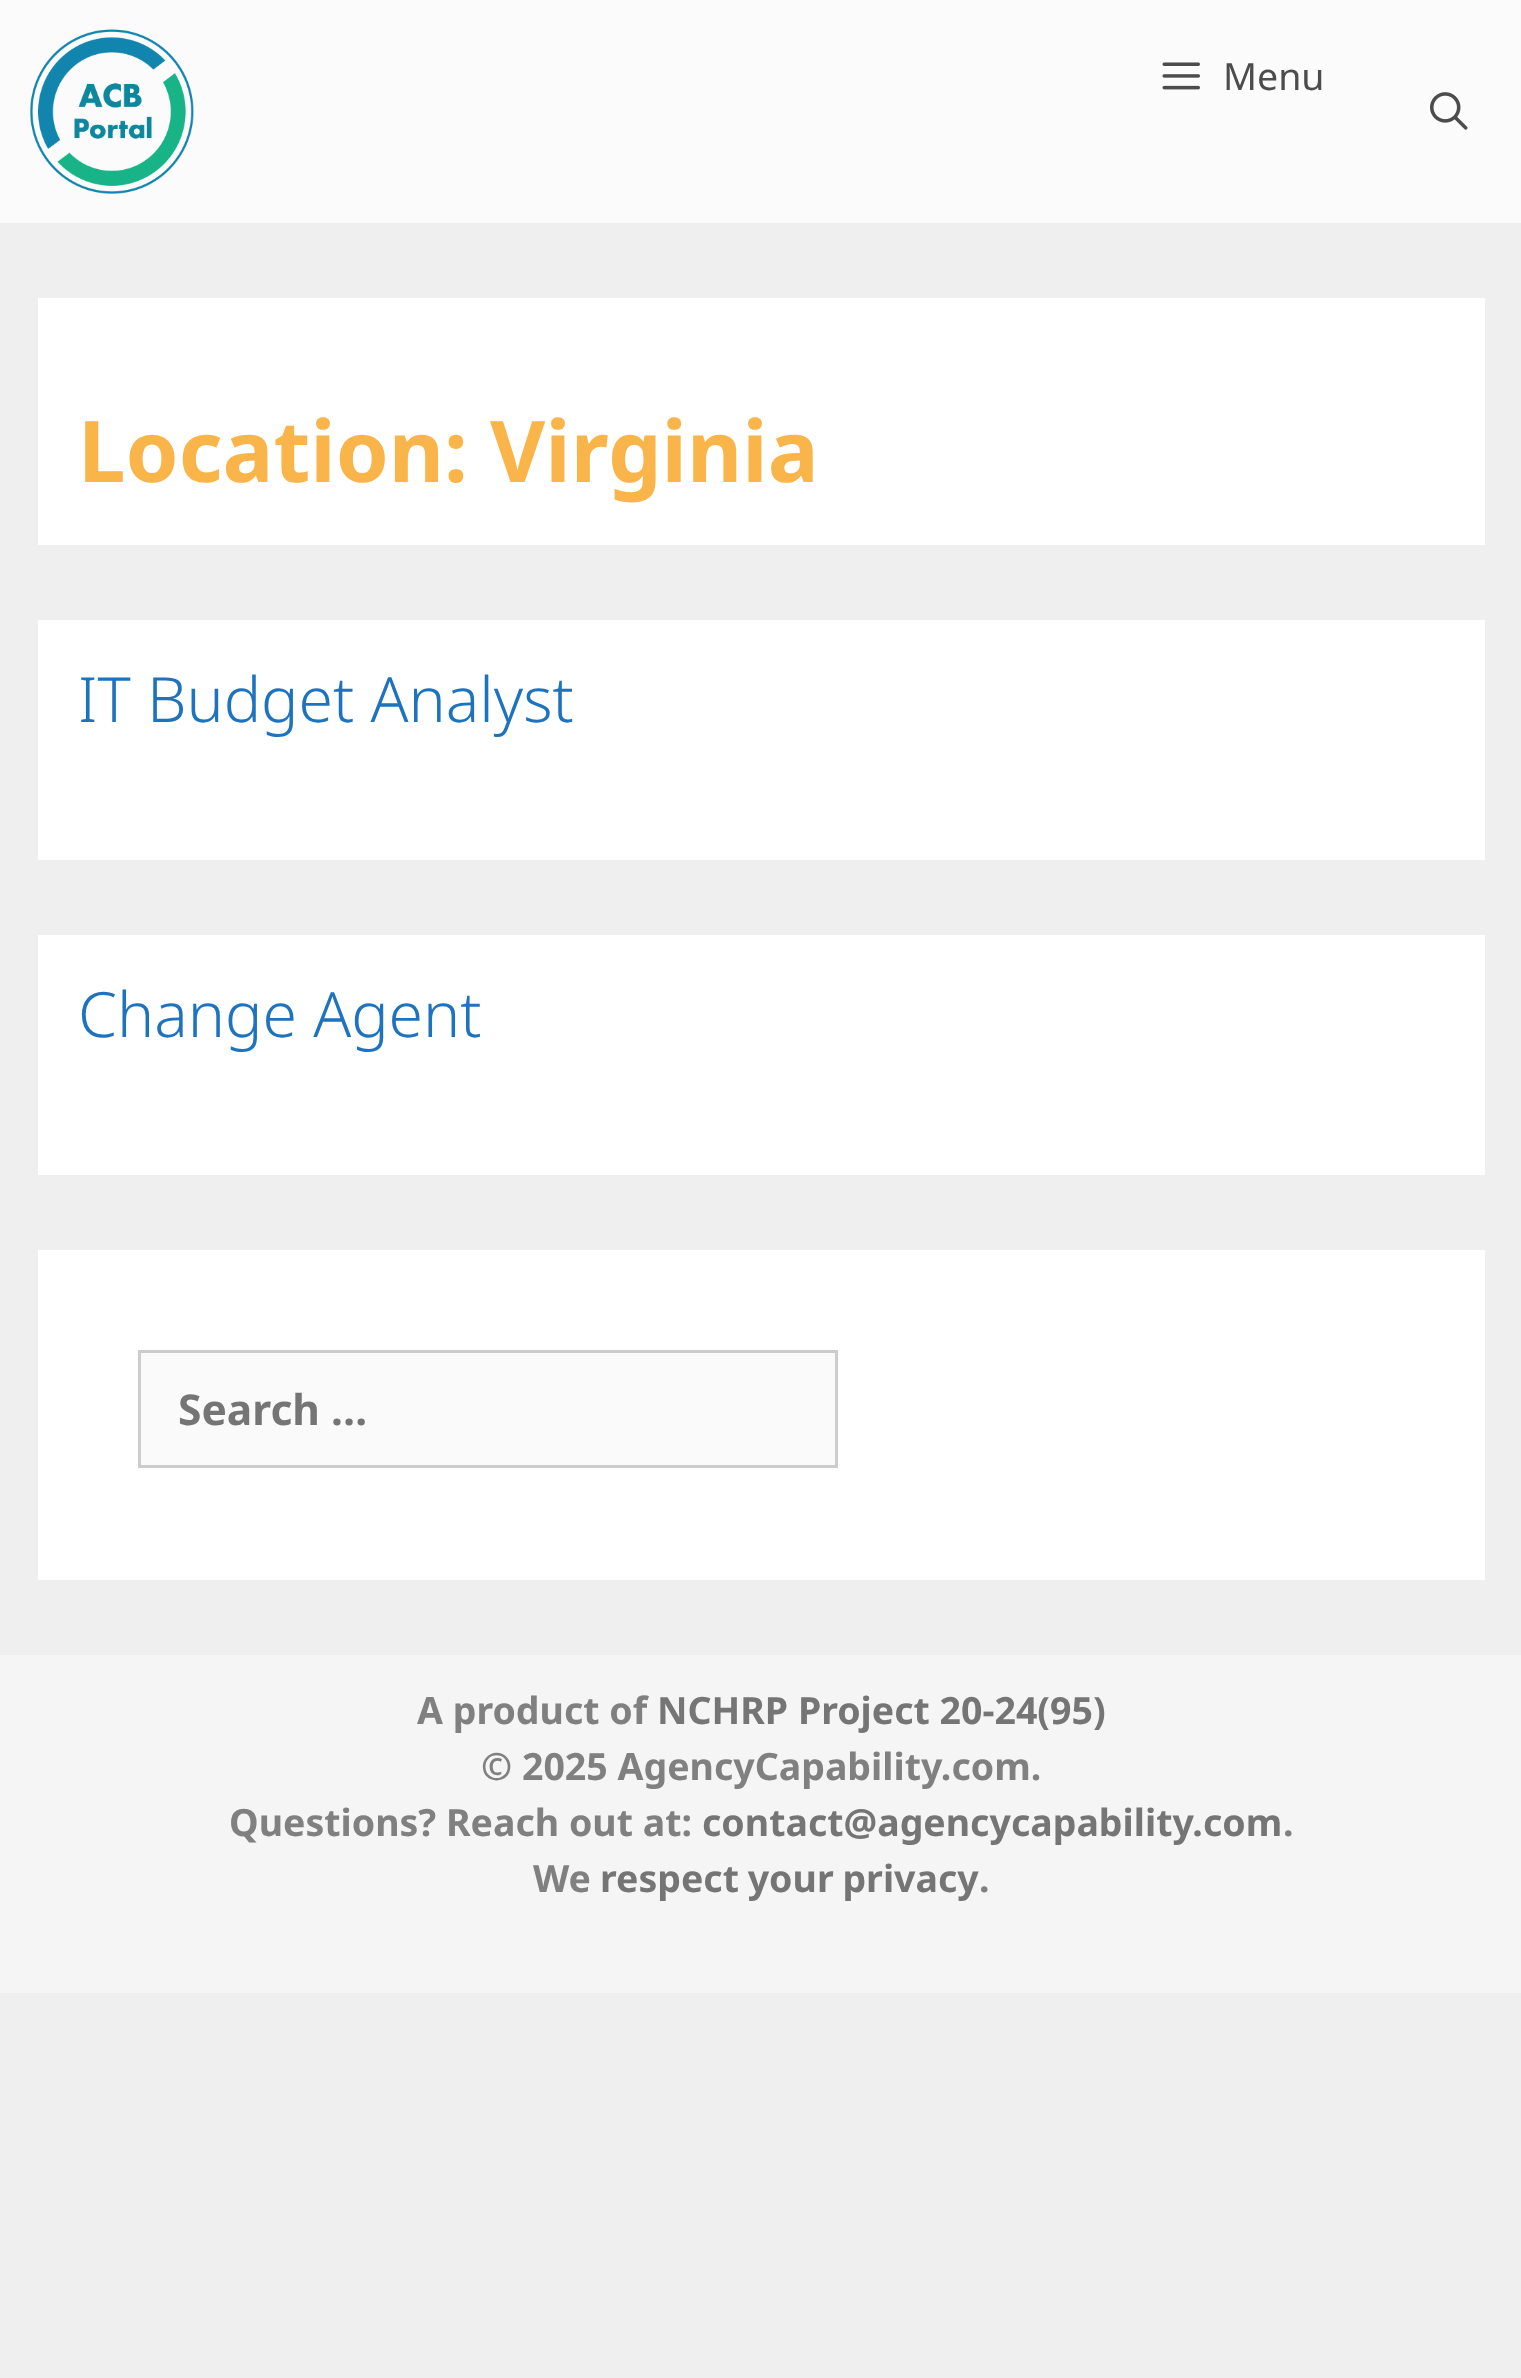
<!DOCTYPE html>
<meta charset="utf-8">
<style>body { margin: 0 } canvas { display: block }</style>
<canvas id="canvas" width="1521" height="2378"></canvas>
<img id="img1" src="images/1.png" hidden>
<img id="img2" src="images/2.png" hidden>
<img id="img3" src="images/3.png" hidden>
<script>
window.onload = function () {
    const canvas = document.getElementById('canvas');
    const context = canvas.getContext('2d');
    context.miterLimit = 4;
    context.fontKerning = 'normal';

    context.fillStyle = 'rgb(239, 239, 239)';
    context.fillRect(0, 0, 1521, 2378);
    context.fillStyle = 'rgb(251, 251, 251)';
    context.fillRect(0, 0, 1521, 223);
    context.drawImage(document.getElementById('img1'), 30, 29, 164, 165);
    context.drawImage(document.getElementById('img2'), 1162, 62, 38, 28);
    context.drawImage(document.getElementById('img3'), 1430, 92, 38, 38);
    context.fillStyle = 'rgb(255, 255, 255)';
    context.fillRect(38, 298, 1447, 247);
    context.fillRect(38, 620, 1447, 240);
    context.fillRect(38, 935, 1447, 240);
    context.fillRect(38, 1250, 1447, 330);
    context.fillStyle = 'rgb(250, 250, 250)';
    context.beginPath();
    context.rect(139.5, 1351.5, 697, 115);
    context.fill();
    context.strokeStyle = 'rgb(204, 204, 204)';
    context.lineWidth = 3;
    context.stroke();
    context.fillStyle = 'rgb(245, 245, 245)';
    context.fillRect(0, 1655, 1521, 338);
    context.font = '37.5px Noto Sans';
    context.fillStyle = 'rgb(76, 76, 76)';
    context.fillText('Menu', 1223, 90);
    context.font = 'bold 85px Noto Sans';
    context.fillStyle = 'rgb(249, 180, 74)';
    context.fillText('Location: Virginia', 78, 482);
    context.font = '300 62.5px Noto Sans';
    context.fillStyle = 'rgb(30, 115, 190)';
    context.fillText('IT Budget Analyst', 78, 722);
    context.fillText('Change Agent', 78, 1037);
    context.font = 'bold 42.5px Noto Sans';
    context.fillStyle = 'rgb(117, 117, 117)';
    context.fillText('Search …', 178, 1425);
    context.font = 'bold 37.5px Noto Sans';
    context.fillStyle = 'rgb(128, 128, 128)';
    context.fillText('A product of', 417, 1724);
    context.fillStyle = 'rgb(117, 117, 117)';
    context.fillText('NCHRP Project 20-24(95)', 657, 1724);
    context.fillStyle = 'rgb(128, 128, 128)';
    context.fillText('© 2025 AgencyCapability.com.', 481, 1780);
    context.fillText('Questions? Reach out at:', 229, 1836);
    context.fillStyle = 'rgb(117, 117, 117)';
    context.fillText('contact@agencycapability.com', 702, 1836);
    context.fillStyle = 'rgb(128, 128, 128)';
    context.fillText('.', 1283, 1836);
    context.fillText('We', 533, 1892);
    context.wordSpacing = '-1px';
    context.fillStyle = 'rgb(117, 117, 117)';
    context.fillText('respect your privacy', 600, 1892);
    context.wordSpacing = '0px';
    context.fillStyle = 'rgb(128, 128, 128)';
    context.fillText('.', 979, 1892);
};
</script>
